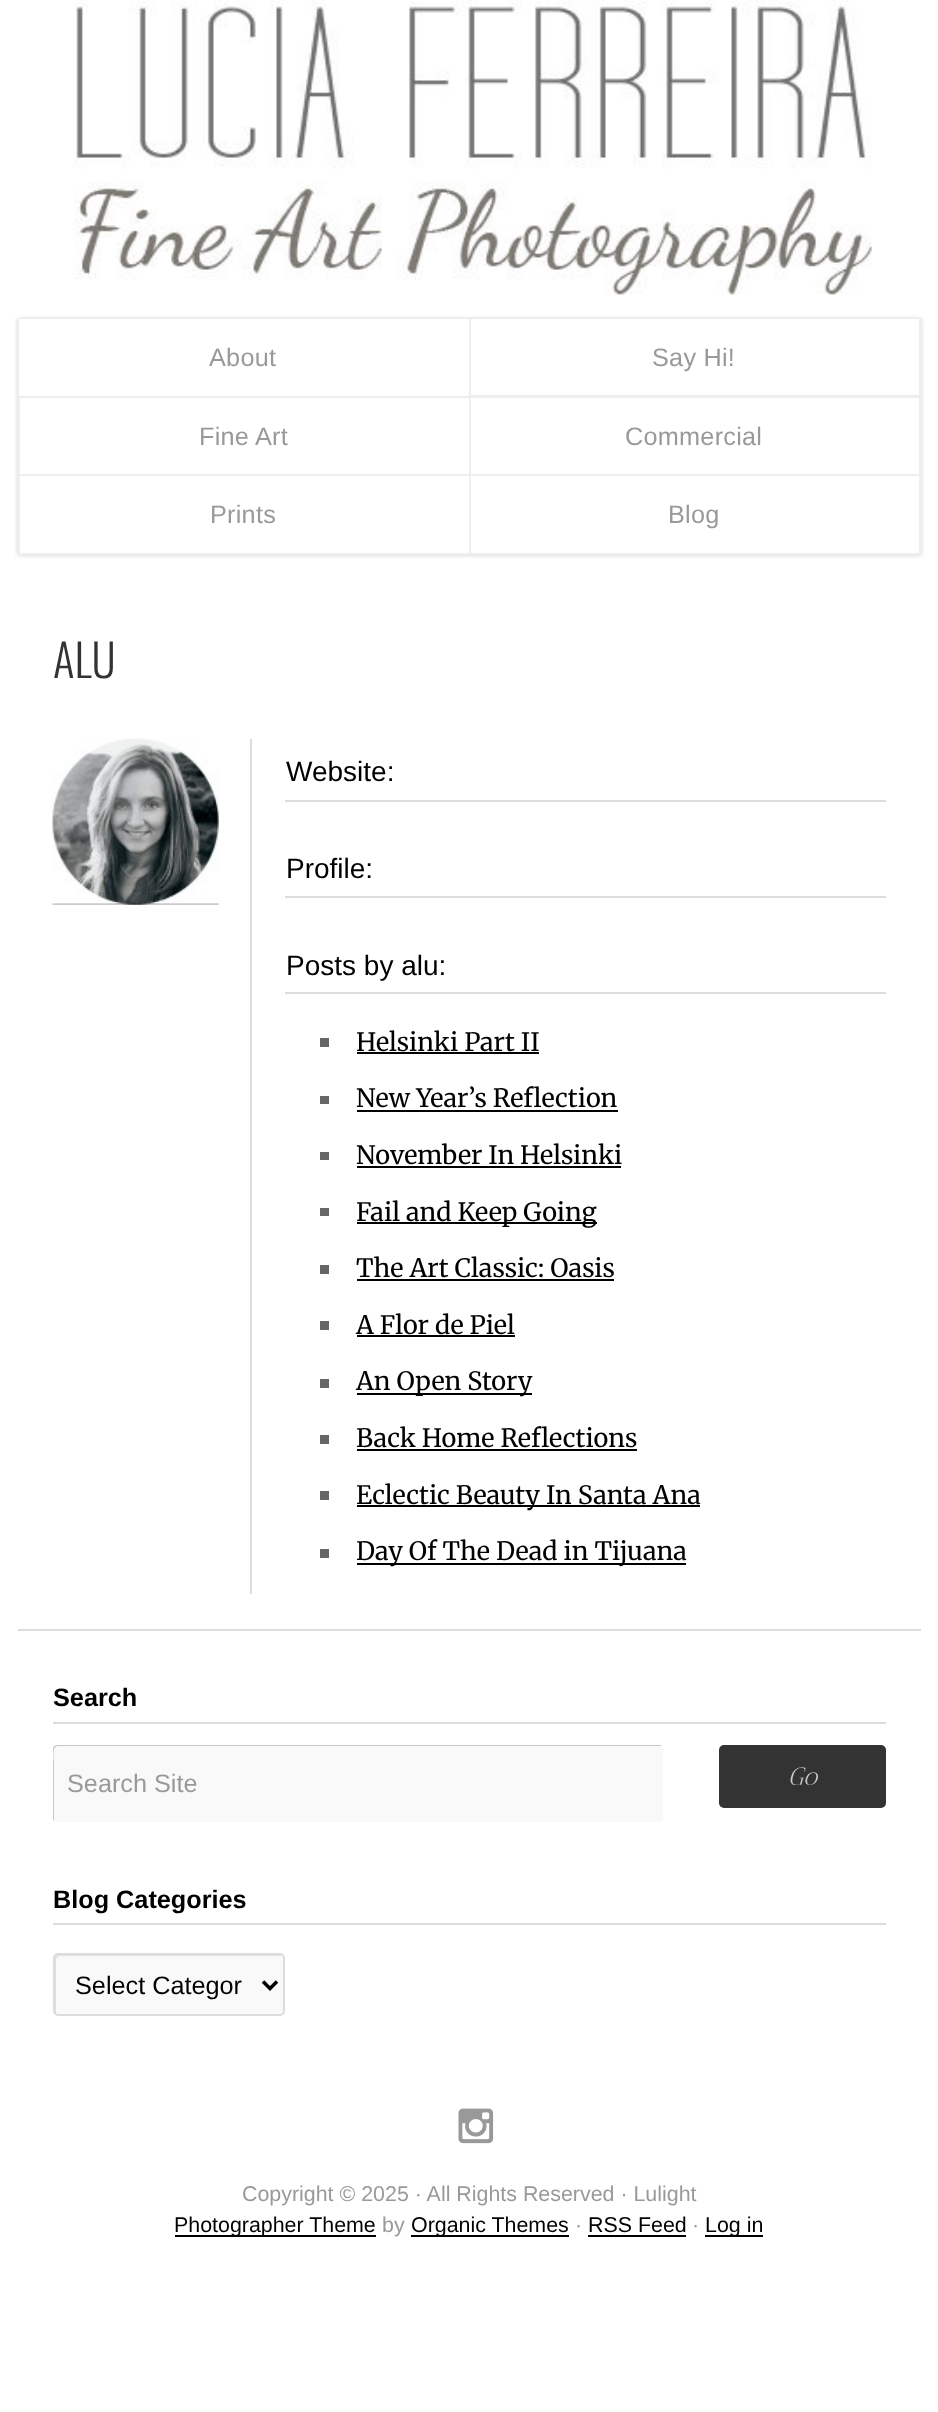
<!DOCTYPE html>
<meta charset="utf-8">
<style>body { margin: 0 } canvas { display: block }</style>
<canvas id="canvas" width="938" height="2412"></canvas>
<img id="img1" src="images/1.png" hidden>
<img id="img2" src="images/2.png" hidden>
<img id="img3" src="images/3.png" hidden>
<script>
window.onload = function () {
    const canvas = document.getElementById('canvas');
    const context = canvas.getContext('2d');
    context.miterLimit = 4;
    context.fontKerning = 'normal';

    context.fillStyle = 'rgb(255, 255, 255)';
    context.fillRect(0, 0, 938, 2412);
    context.drawImage(document.getElementById('img1'), 73, 0, 799, 295);
    context.fillStyle = 'rgb(204, 204, 204)';
    context.filter = 'blur(2px)';
    context.beginPath();
    context.rect(18, 319, 903, 236);
    context.fill();
    context.filter = 'none';
    context.fillStyle = 'rgb(238, 238, 238)';
    context.fillRect(18, 319, 1, 236);
    context.fillStyle = 'rgb(255, 255, 255)';
    context.fillRect(19, 319, 450, 77);
    context.fillRect(471, 319, 448, 76);
    context.save();
    context.beginPath();
    context.rect(19, 319, 902, 236);
    context.clip();
    context.strokeStyle = 'rgb(238, 238, 238)';
    context.lineWidth = 2;
    context.strokeRect(470, 318, 450, 78);
    context.restore();
    context.fillRect(20, 398, 449, 76);
    context.save();
    context.beginPath();
    context.rect(19, 319, 902, 236);
    context.clip();
    context.strokeStyle = 'rgb(238, 238, 238)';
    context.lineWidth = 2;
    context.strokeRect(19, 397, 451, 78);
    context.restore();
    context.beginPath();
    context.rect(470, 397, 450, 78);
    context.fill();
    context.strokeStyle = 'rgb(238, 238, 238)';
    context.lineWidth = 2;
    context.stroke();
    context.fillRect(20, 476, 449, 77);
    context.save();
    context.beginPath();
    context.rect(19, 319, 902, 236);
    context.clip();
    context.strokeRect(19, 475, 451, 79);
    context.restore();
    context.beginPath();
    context.rect(470, 475, 450, 79);
    context.fill();
    context.stroke();
    context.drawImage(document.getElementById('img2'), 52, 738, 167, 167);
    context.fillStyle = 'rgb(221, 221, 221)';
    context.fillRect(250, 739, 2, 855);
    context.fillRect(285, 800, 601, 2);
    context.fillRect(285, 896, 601, 2);
    context.fillRect(285, 992, 601, 2);
    context.fillStyle = 'rgb(102, 102, 102)';
    context.fillRect(320, 1038, 9, 9);
    context.fillStyle = 'rgb(0, 0, 0)';
    context.fillRect(357, 1052, 182, 2);
    context.fillStyle = 'rgb(102, 102, 102)';
    context.fillRect(320, 1096, 9, 8);
    context.fillStyle = 'rgb(0, 0, 0)';
    context.fillRect(357, 1110, 261, 2);
    context.fillStyle = 'rgb(102, 102, 102)';
    context.fillRect(320, 1152, 9, 8);
    context.fillStyle = 'rgb(0, 0, 0)';
    context.fillRect(357, 1166, 264, 2);
    context.fillStyle = 'rgb(102, 102, 102)';
    context.fillRect(320, 1208, 9, 8);
    context.fillStyle = 'rgb(0, 0, 0)';
    context.fillRect(357, 1222, 240, 2);
    context.fillStyle = 'rgb(102, 102, 102)';
    context.fillRect(320, 1265, 9, 9);
    context.fillStyle = 'rgb(0, 0, 0)';
    context.fillRect(357, 1279, 257, 2);
    context.fillStyle = 'rgb(102, 102, 102)';
    context.fillRect(320, 1321, 9, 9);
    context.fillStyle = 'rgb(0, 0, 0)';
    context.fillRect(357, 1335, 158, 2);
    context.fillStyle = 'rgb(102, 102, 102)';
    context.fillRect(320, 1379, 9, 9);
    context.fillStyle = 'rgb(0, 0, 0)';
    context.fillRect(357, 1393, 175, 2);
    context.fillStyle = 'rgb(102, 102, 102)';
    context.fillRect(320, 1435, 9, 9);
    context.fillStyle = 'rgb(0, 0, 0)';
    context.fillRect(357, 1449, 280, 2);
    context.fillStyle = 'rgb(102, 102, 102)';
    context.fillRect(320, 1491, 9, 9);
    context.fillStyle = 'rgb(0, 0, 0)';
    context.fillRect(357, 1505, 343, 2);
    context.fillStyle = 'rgb(102, 102, 102)';
    context.fillRect(320, 1549, 9, 9);
    context.fillStyle = 'rgb(0, 0, 0)';
    context.fillRect(357, 1563, 329, 2);
    context.fillStyle = 'rgb(221, 221, 221)';
    context.fillRect(18, 1629, 903, 2);
    context.fillRect(53, 1722, 833, 2);
    context.fillStyle = 'rgb(249, 249, 249)';
    context.beginPath();
    context.roundRect(53, 1745, 610, 77, 4);
    context.fill();
    context.fillStyle = 'rgb(199, 199, 199)';
    context.beginPath();
    context.moveTo(58, 1746);
    context.lineTo(662, 1746);
    context.bezierCurveTo(661, 1745, 660, 1745, 659, 1745);
    context.lineTo(57, 1745);
    context.bezierCurveTo(55, 1745, 53, 1747, 53, 1749);
    context.lineTo(53, 1818);
    context.bezierCurveTo(53, 1819, 53, 1820, 54, 1821);
    context.lineTo(54, 1762);
    context.bezierCurveTo(54, 1761, 51, 1746, 58, 1746);
    context.closePath();
    context.fill();
    context.fillStyle = 'rgb(51, 51, 51)';
    context.beginPath();
    context.roundRect(719, 1745, 167, 63, 5);
    context.fill();
    context.fillStyle = 'rgb(221, 221, 221)';
    context.fillRect(53, 1923, 833, 2);
    context.fillStyle = 'rgb(249, 249, 249)';
    context.beginPath();
    context.roundRect(53, 1953, 232, 63, 5);
    context.fill();
    context.fillStyle = 'rgb(224, 224, 224)';
    context.beginPath();
    context.moveTo(60, 1956);
    context.lineTo(283, 1956);
    context.bezierCurveTo(282, 1955, 281, 1955, 280, 1955);
    context.lineTo(58, 1955);
    context.bezierCurveTo(56, 1955, 54, 1957, 54, 1959);
    context.lineTo(54, 2010);
    context.bezierCurveTo(54, 2012, 55, 2013, 56, 2014);
    context.lineTo(56, 2012);
    context.lineTo(56, 1960);
    context.bezierCurveTo(56, 1958, 58, 1956, 60, 1956);
    context.closePath();
    context.fill();
    context.beginPath();
    context.roundRect(54, 1954, 230, 61, 4);
    context.strokeStyle = 'rgb(221, 221, 221)';
    context.stroke();
    context.beginPath();
    context.moveTo(263, 1981.5);
    context.lineTo(270, 1988.5);
    context.lineTo(277, 1981.5);
    context.strokeStyle = 'rgb(0, 0, 0)';
    context.lineWidth = 3.5;
    context.stroke();
    context.drawImage(document.getElementById('img3'), 458, 2108, 36, 36);
    context.fillStyle = 'rgb(0, 0, 0)';
    context.fillRect(175, 2235, 201, 2);
    context.fillRect(411, 2235, 158, 2);
    context.fillRect(588, 2235, 98, 2);
    context.fillRect(705, 2235, 58, 2);
    context.letterSpacing = '0.25px';
    context.font = '25.25px Liberation Sans';
    context.fillStyle = 'rgb(153, 153, 153)';
    context.fillText('About', 209, 366);
    context.fillText('Say Hi!', 652, 366);
    context.fillText('Fine Art', 199, 445);
    context.fillText('Commercial', 625, 445);
    context.fillText('Prints', 210, 523);
    context.fillText('Blog', 668, 523);
    context.letterSpacing = '0px';
    context.font = '300 45px Oswald';
    context.fillStyle = 'rgb(51, 51, 51)';
    context.fillText('ALU', 53, 678);
    context.font = '28px Liberation Sans';
    context.fillStyle = 'rgb(0, 0, 0)';
    context.fillText('Website:', 286, 781);
    context.fillText('Profile:', 286, 878);
    context.fillText('Posts by alu:', 286, 975);
    context.font = '25.25px Merriweather';
    context.fillText('Helsinki Part II', 356, 1051);
    context.fillText('New Year’s Reflection', 356, 1107);
    context.fillText('November In Helsinki', 356, 1164);
    context.fillText('Fail and Keep Going', 356, 1221);
    context.fillText('The Art Classic: Oasis', 356, 1277);
    context.fillText('A Flor de Piel', 356, 1334);
    context.fillText('An Open Story', 356, 1390);
    context.fillText('Back Home Reflections', 356, 1447);
    context.fillText('Eclectic Beauty In Santa Ana', 356, 1504);
    context.fillText('Day Of The Dead in Tijuana', 356, 1560);
    context.font = 'bold 25.25px Liberation Sans';
    context.fillText('Search', 53, 1706);
    context.font = '25.25px Liberation Sans';
    context.fillStyle = 'rgb(153, 153, 153)';
    context.fillText('Search Site', 67, 1792);
    context.font = 'italic 25.25px Antic Didone';
    context.fillStyle = 'rgb(204, 204, 204)';
    context.fillText('Go', 788, 1785);
    context.font = 'bold 25.25px Liberation Sans';
    context.fillStyle = 'rgb(0, 0, 0)';
    context.fillText('Blog Categories', 53, 1908);
    context.font = '25.25px Liberation Sans';
    context.fillText('Select Categor', 75, 1994);
    context.font = '21.4px Liberation Sans';
    context.fillStyle = 'rgb(153, 153, 153)';
    context.fillText('Copyright © 2025 · All Rights Reserved · Lulight', 242, 2201);
    context.fillStyle = 'rgb(0, 0, 0)';
    context.fillText('Photographer Theme', 174, 2232);
    context.fillStyle = 'rgb(153, 153, 153)';
    context.fillText('by', 382, 2232);
    context.fillStyle = 'rgb(0, 0, 0)';
    context.fillText('Organic Themes', 411, 2232);
    context.fillStyle = 'rgb(153, 153, 153)';
    context.fillText('·', 575, 2232);
    context.fillStyle = 'rgb(0, 0, 0)';
    context.fillText('RSS Feed', 588, 2232);
    context.fillStyle = 'rgb(153, 153, 153)';
    context.fillText('·', 692, 2232);
    context.fillStyle = 'rgb(0, 0, 0)';
    context.fillText('Log in', 705, 2232);
};
</script>
